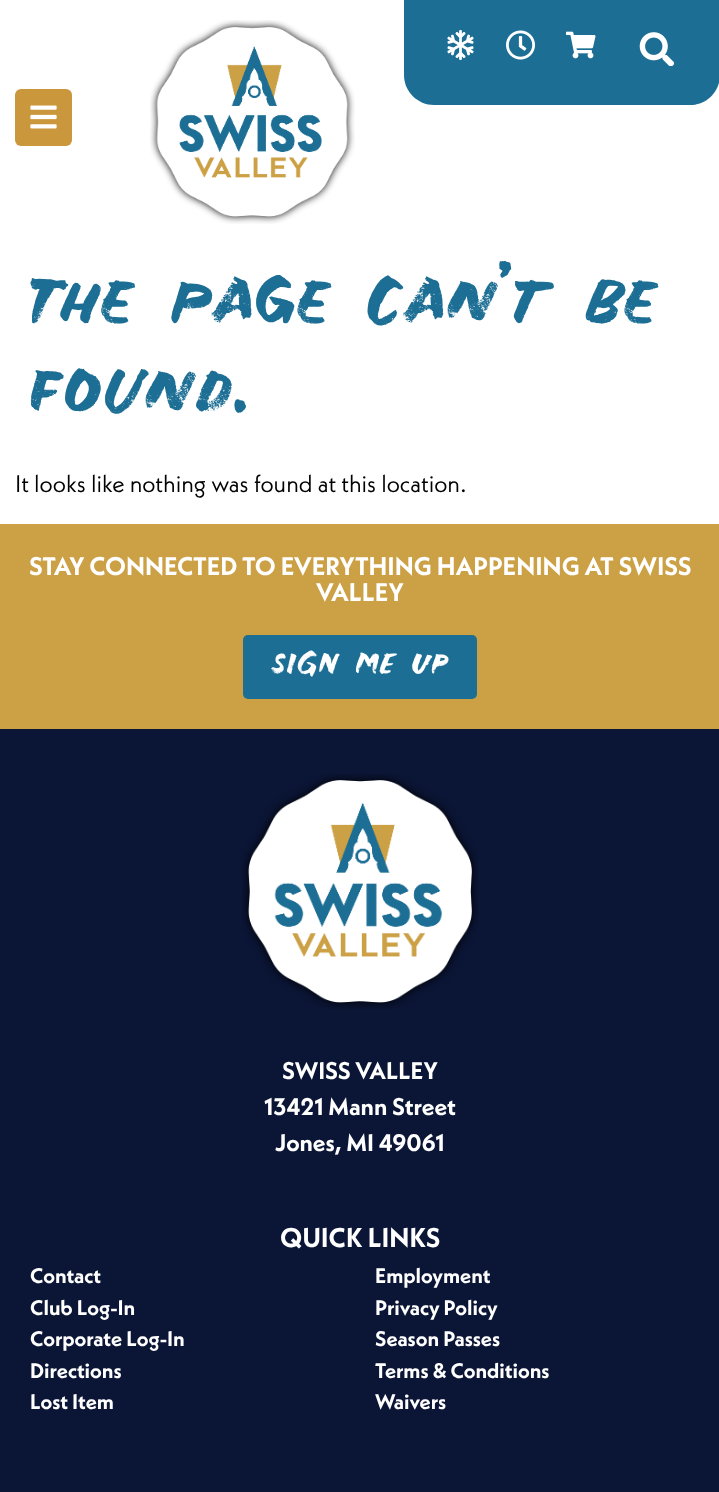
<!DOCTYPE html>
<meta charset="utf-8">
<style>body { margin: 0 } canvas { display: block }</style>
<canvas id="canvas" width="719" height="1492"></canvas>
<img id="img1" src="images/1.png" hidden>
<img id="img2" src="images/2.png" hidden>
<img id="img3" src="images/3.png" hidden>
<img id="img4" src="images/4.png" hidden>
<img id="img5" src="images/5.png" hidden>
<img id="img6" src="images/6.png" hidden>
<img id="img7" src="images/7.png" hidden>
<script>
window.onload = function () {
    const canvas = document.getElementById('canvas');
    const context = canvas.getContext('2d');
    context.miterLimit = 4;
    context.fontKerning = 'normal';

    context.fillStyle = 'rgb(255, 255, 255)';
    context.fillRect(0, 0, 719, 1492);
    context.fillStyle = 'rgb(202, 151, 61)';
    context.beginPath();
    context.roundRect(15, 89, 57, 57, 6);
    context.fill();
    context.drawImage(document.getElementById('img1'), 30, 105, 27, 24);
    context.drawImage(document.getElementById('img2'), 150, 20, 205, 204);
    context.fillStyle = 'rgb(28, 110, 148)';
    context.beginPath();
    context.moveTo(404, -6);
    context.lineTo(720, -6);
    context.lineTo(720, 75);
    context.bezierCurveTo(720, 91.5, 706.5, 105, 690, 105);
    context.lineTo(434, 105);
    context.bezierCurveTo(417.5, 105, 404, 91.5, 404, 75);
    context.closePath();
    context.fill();
    context.drawImage(document.getElementById('img3'), 447, 30, 27, 30);
    context.drawImage(document.getElementById('img4'), 506, 30, 29, 30);
    context.drawImage(document.getElementById('img5'), 566, 31, 30, 28);
    context.drawImage(document.getElementById('img6'), 639, 32, 35, 34);
    context.fillStyle = 'rgb(204, 160, 68)';
    context.fillRect(0, 524, 719, 205);
    context.fillStyle = 'rgb(28, 110, 148)';
    context.beginPath();
    context.roundRect(243, 635, 234, 64, 5);
    context.fill();
    context.fillStyle = 'rgb(11, 21, 53)';
    context.fillRect(0, 729, 719, 763);
    context.drawImage(document.getElementById('img7'), 242, 774, 236, 235);
    context.font = '75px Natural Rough';
    context.fillStyle = 'rgb(28, 110, 148)';
    context.fillText('The page can’t be', 30, 324);
    context.fillText('found.', 30, 414);
    context.font = '24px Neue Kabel';
    context.fillStyle = 'rgb(0, 0, 0)';
    context.fillText('It looks like nothing was found at this location.', 15, 492);
    context.font = 'bold 25.5px Neue Kabel';
    context.fillStyle = 'rgb(255, 255, 255)';
    context.fillText('STAY CONNECTED TO EVERYTHING HAPPENING AT SWISS', 29, 575);
    context.fillText('VALLEY', 316, 601);
    context.font = '34.5px Natural Rough';
    context.fillText('SIGN ME UP', 273, 674);
    context.font = 'bold 24px Neue Kabel';
    context.fillText('SWISS VALLEY', 282, 1079);
    context.fillText('13421 Mann Street', 264, 1115);
    context.fillText('Jones, MI 49061', 275, 1151);
    context.font = 'bold 27px Neue Kabel';
    context.fillText('QUICK LINKS', 280, 1247);
    context.font = 'bold 21px Neue Kabel';
    context.fillText('Contact', 30, 1283);
    context.fillText('Club Log-In', 30, 1315);
    context.fillText('Corporate Log-In', 30, 1346);
    context.fillText('Directions', 30, 1378);
    context.fillText('Lost Item', 30, 1409);
    context.fillText('Employment', 375, 1283);
    context.fillText('Privacy Policy', 375, 1315);
    context.fillText('Season Passes', 375, 1346);
    context.fillText('Terms & Conditions', 375, 1378);
    context.fillText('Waivers', 375, 1409);
};
</script>
